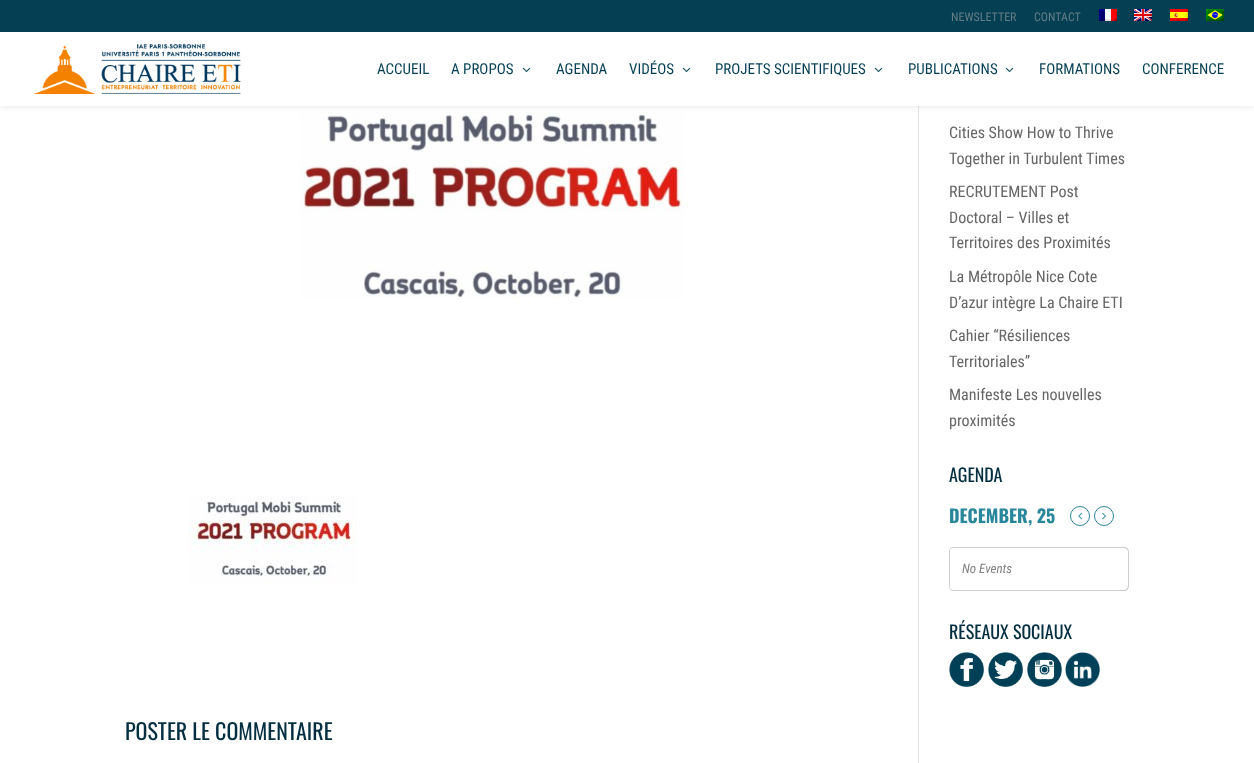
<!DOCTYPE html>
<meta charset="utf-8">
<style>body { margin: 0 } canvas { display: block }</style>
<canvas id="canvas" width="1254" height="763"></canvas>
<img id="img1" src="images/13.png" hidden>
<img id="img2" src="images/1.png" hidden>
<img id="img3" src="images/2.png" hidden>
<img id="img4" src="images/3.png" hidden>
<img id="img5" src="images/4.png" hidden>
<img id="img6" src="images/5.png" hidden>
<img id="img7" src="images/6.png" hidden>
<img id="img8" src="images/7.png" hidden>
<img id="img9" src="images/8.png" hidden>
<img id="img10" src="images/9.png" hidden>
<img id="img11" src="images/10.png" hidden>
<img id="img12" src="images/11.png" hidden>
<img id="img13" src="images/12.png" hidden>
<img id="img14" src="images/14.png" hidden>
<script>
window.onload = function () {
    const canvas = document.getElementById('canvas');
    const context = canvas.getContext('2d');
    context.miterLimit = 4;
    context.fontKerning = 'normal';

    context.fillStyle = 'rgb(255, 255, 255)';
    context.fillRect(0, 0, 1254, 763);
    context.fillStyle = 'rgb(226, 226, 226)';
    context.fillRect(918, 106, 1, 657);
    context.drawImage(document.getElementById('img1'), 300, 112, 384, 186);
    context.fillStyle = 'rgba(0, 0, 0, 0.1)';
    context.filter = 'blur(3.5px)';
    context.beginPath();
    context.rect(0, 32, 1254, 74);
    context.fill();
    context.filter = 'none';
    context.fillStyle = 'rgb(4, 63, 84)';
    context.fillRect(0, 0, 1254, 32);
    context.drawImage(document.getElementById('img2'), 1099, 9, 18, 12);
    context.drawImage(document.getElementById('img3'), 1134, 9, 18, 12);
    context.drawImage(document.getElementById('img4'), 1170, 9, 18, 12);
    context.drawImage(document.getElementById('img5'), 1206, 9, 18, 12);
    context.fillStyle = 'rgb(255, 255, 255)';
    context.fillRect(0, 32, 1254, 74);
    context.drawImage(document.getElementById('img6'), 34, 44, 207, 50);
    context.drawImage(document.getElementById('img7'), 522, 67, 9, 5);
    context.drawImage(document.getElementById('img7'), 682, 67, 9, 5);
    context.drawImage(document.getElementById('img7'), 874, 67, 9, 5);
    context.drawImage(document.getElementById('img7'), 1005, 67, 9, 5);
    context.beginPath();
    context.arc(1080, 516, 9.5, 0, 2 * Math.PI);
    context.strokeStyle = 'rgb(41, 135, 156)';
    context.stroke();
    context.drawImage(document.getElementById('img8'), 1078, 512, 5, 8);
    context.beginPath();
    context.arc(1104, 516, 9.5, 0, 2 * Math.PI);
    context.stroke();
    context.drawImage(document.getElementById('img9'), 1102, 512, 4, 8);
    context.fillStyle = 'rgb(205, 205, 205)';
    context.beginPath();
    context.moveTo(954, 547);
    context.lineTo(1124, 547);
    context.bezierCurveTo(1127, 547, 1129, 549, 1129, 552);
    context.lineTo(1129, 586);
    context.bezierCurveTo(1129, 589, 1127, 591, 1124, 591);
    context.lineTo(954, 591);
    context.bezierCurveTo(951, 591, 949, 589, 949, 586);
    context.lineTo(949, 552);
    context.bezierCurveTo(949, 549, 951, 547, 954, 547);
    context.closePath();
    context.moveTo(954, 548);
    context.lineTo(1124, 548);
    context.bezierCurveTo(1126, 548, 1128, 550, 1128, 552);
    context.lineTo(1128, 586);
    context.bezierCurveTo(1128, 588, 1126, 590, 1124, 590);
    context.lineTo(954, 590);
    context.bezierCurveTo(951, 590, 949, 588, 949, 586);
    context.lineTo(949, 552);
    context.bezierCurveTo(949, 550, 951, 548, 954, 548);
    context.closePath();
    context.fill('evenodd');
    context.beginPath();
    context.moveTo(949, 552);
    context.lineTo(949, 586);
    context.bezierCurveTo(949, 587, 949.5, 587.5, 950, 588.5);
    context.lineTo(950, 549.5);
    context.bezierCurveTo(949.5, 550.5, 949, 551, 949, 552);
    context.closePath();
    context.fill();
    context.drawImage(document.getElementById('img10'), 949, 652, 35, 35);
    context.drawImage(document.getElementById('img11'), 988, 652, 35, 35);
    context.drawImage(document.getElementById('img12'), 1027, 652, 35, 35);
    context.drawImage(document.getElementById('img13'), 1065, 652, 35, 35);
    context.drawImage(document.getElementById('img14'), 188, 496, 169, 88);
    context.font = '12px Roboto Condensed';
    context.fillStyle = 'rgb(101, 125, 133)';
    context.fillText('NEWSLETTER', 951, 21);
    context.fillText('CONTACT', 1034, 21);
    context.font = '15px Roboto Condensed';
    context.fillStyle = 'rgb(4, 63, 84)';
    context.fillText('ACCUEIL', 377, 74);
    context.fillText('A PROPOS', 451, 74);
    context.fillText('AGENDA', 556, 74);
    context.fillText('VIDÉOS', 629, 74);
    context.fillText('PROJETS SCIENTIFIQUES', 715, 74);
    context.fillText('PUBLICATIONS', 908, 74);
    context.fillText('FORMATIONS', 1039, 74);
    context.fillText('CONFERENCE', 1142, 74);
    context.font = '16px Roboto Condensed';
    context.fillStyle = 'rgb(102, 102, 102)';
    context.fillText('Cities Show How to Thrive', 949, 138);
    context.fillText('Together in Turbulent Times', 949, 164);
    context.fillText('RECRUTEMENT Post', 949, 197);
    context.fillText('Doctoral – Villes et', 949, 223);
    context.fillText('Territoires des Proximités', 949, 248);
    context.fillText('La Métropôle Nice Cote', 949, 282);
    context.fillText('D’azur intègre La Chaire ETI', 949, 308);
    context.fillText('Cahier “Résiliences', 949, 341);
    context.fillText('Territoriales”', 949, 367);
    context.fillText('Manifeste Les nouvelles', 949, 400);
    context.fillText('proximités', 949, 426);
    context.font = '18px Oswald';
    context.fillStyle = 'rgb(4, 47, 64)';
    context.fillText('AGENDA', 949, 482);
    context.font = 'bold 18px Oswald';
    context.fillStyle = 'rgb(41, 135, 156)';
    context.fillText('DECEMBER, 25', 949, 523);
    context.font = 'italic 13px Roboto Condensed';
    context.fillStyle = 'rgb(128, 128, 128)';
    context.fillText('No Events', 962, 573);
    context.font = '18px Oswald';
    context.fillStyle = 'rgb(4, 47, 64)';
    context.fillText('RÉSEAUX SOCIAUX', 949, 639);
    context.font = '22px Oswald';
    context.fillText('POSTER LE COMMENTAIRE', 125, 740);
};
</script>
